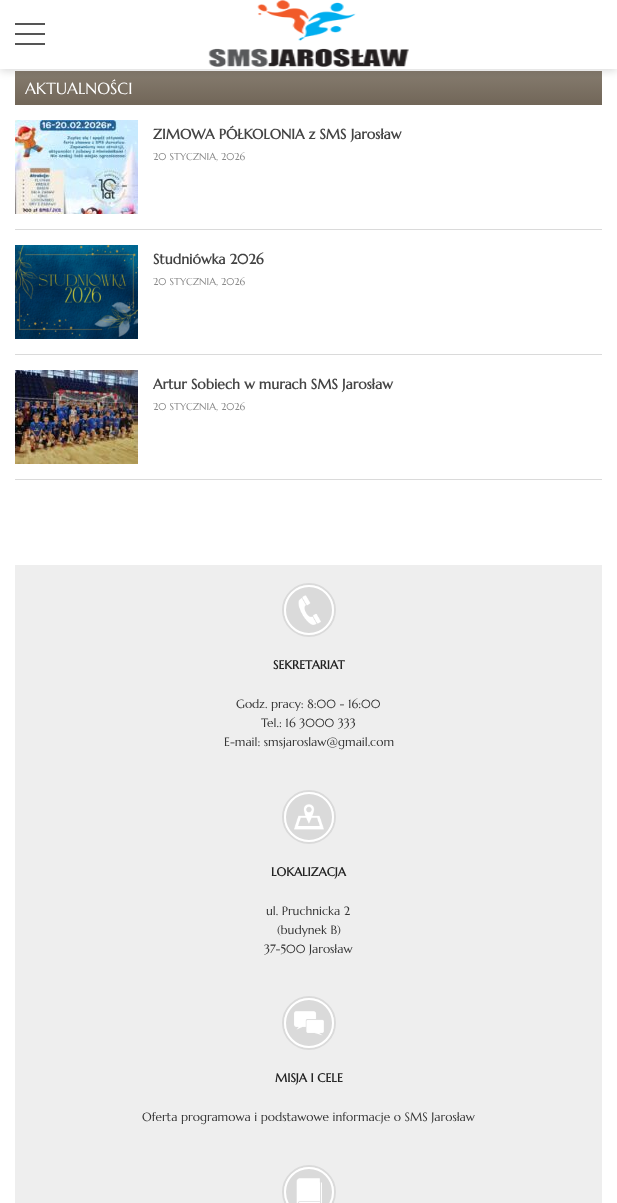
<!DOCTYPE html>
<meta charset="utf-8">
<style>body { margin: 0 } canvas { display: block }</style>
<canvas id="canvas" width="617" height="1203"></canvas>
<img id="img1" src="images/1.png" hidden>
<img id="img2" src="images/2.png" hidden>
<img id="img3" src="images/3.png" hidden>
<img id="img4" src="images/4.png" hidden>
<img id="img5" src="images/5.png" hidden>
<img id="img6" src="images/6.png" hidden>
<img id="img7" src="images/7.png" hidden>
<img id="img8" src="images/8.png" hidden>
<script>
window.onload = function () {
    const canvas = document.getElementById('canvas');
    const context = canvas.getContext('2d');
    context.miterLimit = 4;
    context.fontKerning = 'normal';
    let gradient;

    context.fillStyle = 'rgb(255, 255, 255)';
    context.fillRect(0, 0, 617, 1203);
    gradient = context.createLinearGradient(309, 71, 309, 105);
    gradient.addColorStop(0, 'rgb(134, 124, 111)');
    gradient.addColorStop(1, 'rgb(113, 102, 88)');
    context.fillStyle = gradient;
    context.fillRect(15, 71, 587, 34);
    context.fillStyle = 'rgba(0, 0, 0, 0.15)';
    context.filter = 'blur(4px)';
    context.beginPath();
    context.rect(0, 2, 617, 69);
    context.fill();
    context.filter = 'none';
    context.fillStyle = 'rgb(255, 255, 255)';
    context.fillRect(0, 0, 617, 69);
    context.fillStyle = 'rgb(85, 85, 85)';
    context.fillRect(15, 23, 30, 2);
    context.fillRect(15, 33, 30, 2);
    context.fillRect(15, 43, 30, 2);
    context.drawImage(document.getElementById('img1'), 208, 0, 201, 67);
    context.fillStyle = 'rgb(218, 218, 218)';
    context.fillRect(15, 229, 587, 1);
    context.drawImage(document.getElementById('img2'), 15, 120, 123, 94);
    context.fillRect(15, 354, 587, 1);
    context.drawImage(document.getElementById('img3'), 15, 245, 123, 94);
    context.fillRect(15, 479, 587, 1);
    context.drawImage(document.getElementById('img4'), 15, 370, 123, 94);
    context.fillStyle = 'rgb(238, 238, 238)';
    context.fillRect(15, 565, 587, 638);
    context.beginPath();
    context.arc(309, 610, 26, 0, 2 * Math.PI);
    context.strokeStyle = 'rgb(218, 218, 218)';
    context.lineWidth = 2;
    context.stroke();
    context.fillStyle = 'rgb(218, 218, 218)';
    context.beginPath();
    context.arc(309, 610, 24, 0, 2 * Math.PI);
    context.fill();
    context.strokeStyle = 'rgb(255, 255, 255)';
    context.stroke();
    context.drawImage(document.getElementById('img5'), 298, 595, 23, 30);
    context.beginPath();
    context.arc(309, 817, 26, 0, 2 * Math.PI);
    context.strokeStyle = 'rgb(218, 218, 218)';
    context.stroke();
    context.beginPath();
    context.arc(309, 817, 24, 0, 2 * Math.PI);
    context.fill();
    context.strokeStyle = 'rgb(255, 255, 255)';
    context.stroke();
    context.drawImage(document.getElementById('img6'), 294, 804, 30, 26);
    context.beginPath();
    context.arc(309, 1023, 26, 0, 2 * Math.PI);
    context.strokeStyle = 'rgb(218, 218, 218)';
    context.stroke();
    context.beginPath();
    context.arc(309, 1023, 24, 0, 2 * Math.PI);
    context.fill();
    context.strokeStyle = 'rgb(255, 255, 255)';
    context.stroke();
    context.drawImage(document.getElementById('img7'), 294, 1011, 30, 25);
    context.beginPath();
    context.arc(309, 1192, 26, 0, 2 * Math.PI);
    context.strokeStyle = 'rgb(218, 218, 218)';
    context.stroke();
    context.beginPath();
    context.arc(309, 1192, 24, 0, 2 * Math.PI);
    context.fill();
    context.strokeStyle = 'rgb(255, 255, 255)';
    context.stroke();
    context.drawImage(document.getElementById('img8'), 296, 1178, 26, 25);
    context.font = '16px Marcellus';
    context.fillStyle = 'rgb(255, 255, 255)';
    context.fillText('AKTUALNOŚCI', 25, 94);
    context.font = 'bold 14px Marcellus';
    context.fillStyle = 'rgb(68, 68, 68)';
    context.fillText('ZIMOWA PÓŁKOLONIA z SMS Jarosław', 153, 139);
    context.font = '10px Marcellus';
    context.fillStyle = 'rgb(137, 137, 137)';
    context.fillText('20 STYCZNIA, 2026', 153, 160);
    context.font = 'bold 14px Marcellus';
    context.fillStyle = 'rgb(68, 68, 68)';
    context.fillText('Studniówka 2026', 153, 264);
    context.font = '10px Marcellus';
    context.fillStyle = 'rgb(137, 137, 137)';
    context.fillText('20 STYCZNIA, 2026', 153, 285);
    context.font = 'bold 14px Marcellus';
    context.fillStyle = 'rgb(68, 68, 68)';
    context.fillText('Artur Sobiech w murach SMS Jarosław', 153, 389);
    context.font = '10px Marcellus';
    context.fillStyle = 'rgb(137, 137, 137)';
    context.fillText('20 STYCZNIA, 2026', 153, 410);
    context.font = 'bold 12px Marcellus';
    context.fillStyle = 'rgb(34, 34, 34)';
    context.fillText('SEKRETARIAT', 273, 669);
    context.font = '12px Marcellus';
    context.fillStyle = 'rgb(51, 51, 51)';
    context.fillText('Godz. pracy: 8:00 - 16:00', 236, 708);
    context.fillText('Tel.: 16 3000 333', 261, 727);
    context.fillText('E-mail: smsjaroslaw@gmail.com', 224, 746);
    context.font = 'bold 12px Marcellus';
    context.fillStyle = 'rgb(34, 34, 34)';
    context.fillText('LOKALIZACJA', 271, 876);
    context.font = '12px Marcellus';
    context.fillStyle = 'rgb(51, 51, 51)';
    context.fillText('ul. Pruchnicka 2', 266, 915);
    context.fillText('(budynek B)', 277, 934);
    context.fillText('37-500 Jarosław', 264, 953);
    context.font = 'bold 12px Marcellus';
    context.fillStyle = 'rgb(34, 34, 34)';
    context.fillText('MISJA I CELE', 275, 1082);
    context.font = '12px Marcellus';
    context.fillStyle = 'rgb(51, 51, 51)';
    context.fillText('Oferta programowa i podstawowe informacje o SMS Jarosław', 142, 1121);
};
</script>
